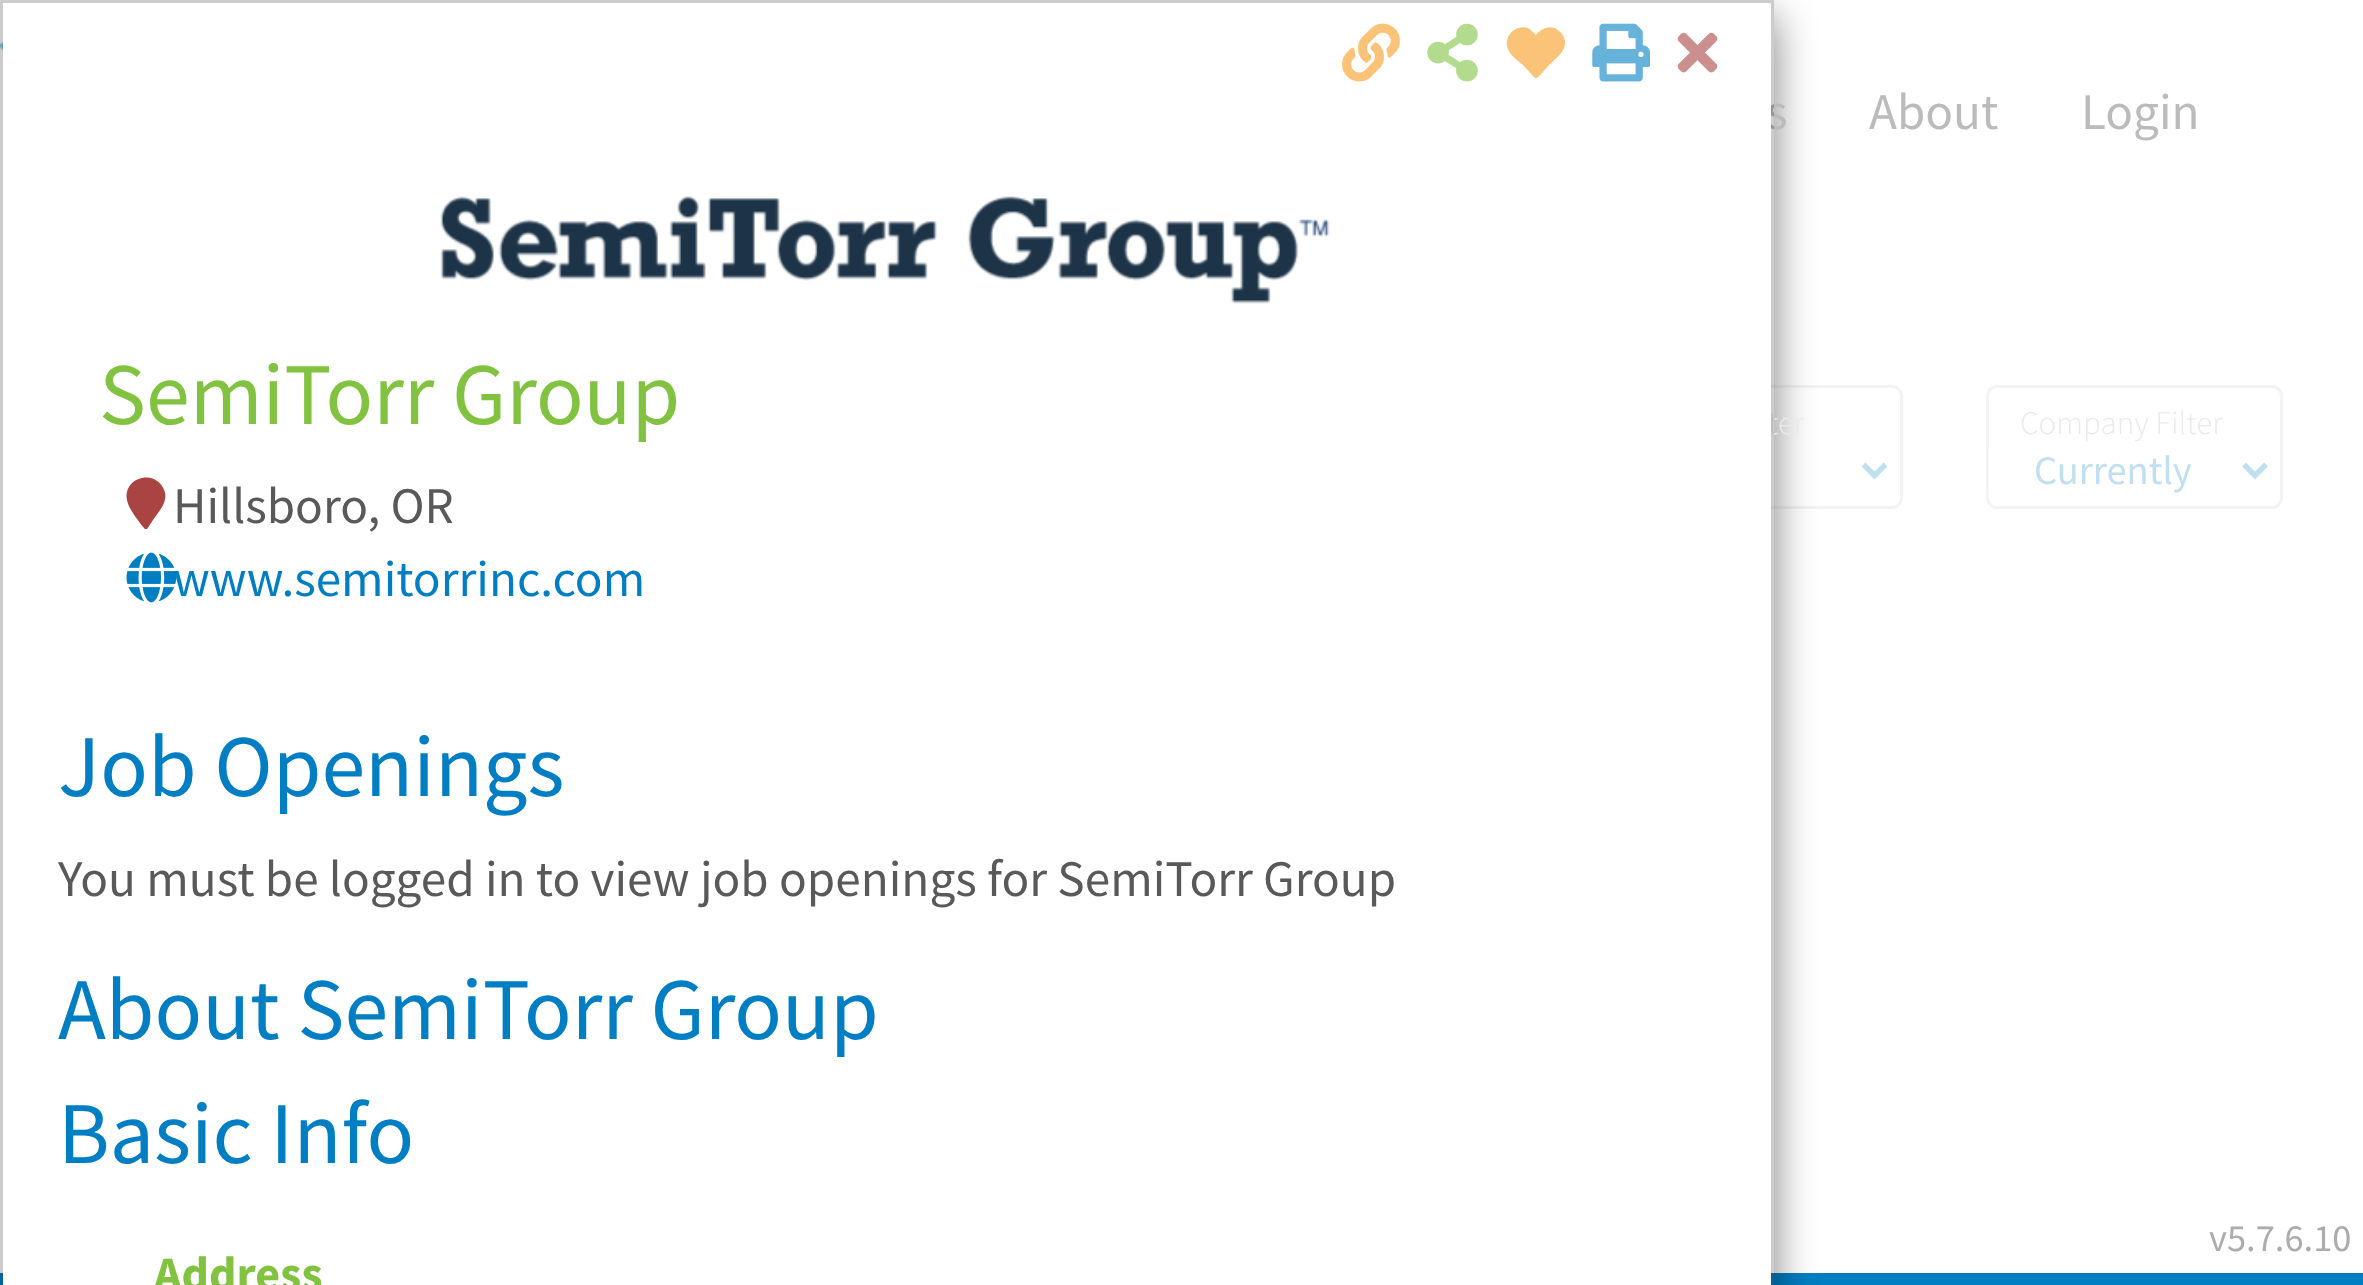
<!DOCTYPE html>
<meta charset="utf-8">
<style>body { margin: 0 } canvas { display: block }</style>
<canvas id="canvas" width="2363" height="1285"></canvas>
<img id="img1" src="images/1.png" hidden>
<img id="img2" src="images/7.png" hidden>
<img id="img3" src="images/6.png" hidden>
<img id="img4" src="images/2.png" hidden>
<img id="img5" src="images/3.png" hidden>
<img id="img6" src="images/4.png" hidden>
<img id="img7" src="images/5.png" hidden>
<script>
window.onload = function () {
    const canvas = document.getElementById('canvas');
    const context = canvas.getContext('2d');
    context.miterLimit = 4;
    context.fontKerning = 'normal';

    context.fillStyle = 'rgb(255, 255, 255)';
    context.fillRect(0, 0, 2363, 1285);
    context.drawImage(document.getElementById('img1'), 0, 41, 3, 10);
    context.beginPath();
    context.roundRect(1604.5, 386.5, 297, 121, 9.5);
    context.strokeStyle = 'rgb(243, 243, 243)';
    context.lineWidth = 3;
    context.stroke();
    context.fillStyle = 'rgb(0, 126, 195)';
    context.fillRect(0, 1273, 2363, 12);
    context.save();
    context.beginPath();
    context.moveTo(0, 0);
    context.lineTo(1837, 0);
    context.lineTo(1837, 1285);
    context.lineTo(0, 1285);
    context.closePath();
    context.moveTo(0, 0);
    context.lineTo(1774, 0);
    context.lineTo(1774, 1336);
    context.bezierCurveTo(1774, 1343.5, 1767.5, 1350, 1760, 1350);
    context.lineTo(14, 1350);
    context.bezierCurveTo(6.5, 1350, 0, 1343.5, 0, 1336);
    context.closePath();
    context.clip('evenodd');
    context.fillStyle = 'rgba(0, 0, 0, 0.5)';
    context.filter = 'blur(20.5px)';
    context.beginPath();
    context.roundRect(0, 14, 1774, 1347, 14);
    context.fill();
    context.filter = 'none';
    context.restore();
    context.beginPath();
    context.moveTo(1863.5, 464.5);
    context.lineTo(1874.5, 475.5);
    context.lineTo(1885.5, 464.5);
    context.strokeStyle = 'rgb(192, 223, 240)';
    context.lineWidth = 5.5;
    context.stroke();
    context.beginPath();
    context.roundRect(1987.5, 386.5, 294, 121, 9.5);
    context.strokeStyle = 'rgb(243, 243, 243)';
    context.lineWidth = 3;
    context.stroke();
    context.beginPath();
    context.roundRect(1989.5, 441.5, 289, 58, 9.5);
    context.strokeStyle = 'rgba(255, 255, 255, 0.5)';
    context.stroke();
    context.beginPath();
    context.moveTo(2244, 464.5);
    context.lineTo(2255, 475.5);
    context.lineTo(2266, 464.5);
    context.strokeStyle = 'rgb(192, 223, 240)';
    context.lineWidth = 5.5;
    context.stroke();
    context.font = '51.3px Source Sans Pro';
    context.fillStyle = 'rgb(187, 187, 187)';
    context.fillText('s', 1766, 129);
    context.fillText('About', 1869, 129);
    context.fillText('Login', 2081, 129);
    context.font = '300 33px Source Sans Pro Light';
    context.fillStyle = 'rgb(234, 234, 234)';
    context.fillText('ter', 1768, 434);
    context.fillStyle = 'rgb(255, 255, 255)';
    context.fillRect(3, 105, 1768, 1180);
    context.strokeStyle = 'rgba(0, 0, 0, 0.2)';
    context.lineWidth = 3;
    context.strokeRect(1.5, 1.5, 1771, 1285);
    context.font = 'bold 48px Source Sans Pro';
    context.fillStyle = 'rgb(129, 195, 65)';
    context.fillText('Address', 154, 1290);
    context.font = '88px Source Sans Pro';
    context.fillStyle = 'rgb(0, 126, 195)';
    context.fillText('Basic Info', 58, 1163);
    context.fillText('About SemiTorr Group', 58, 1039);
    context.font = '51.3px Source Sans Pro';
    context.fillStyle = 'rgb(90, 89, 89)';
    context.fillText('You must be logged in to view job openings for SemiTorr Group', 58, 896);
    context.font = '88px Source Sans Pro';
    context.fillStyle = 'rgb(0, 126, 195)';
    context.fillText('Job Openings', 58, 796);
    context.drawImage(document.getElementById('img2'), 126, 552, 51, 51);
    context.font = '51.3px Source Sans Pro';
    context.fillText('www.semitorrinc.com', 173, 596);
    context.fillStyle = 'rgb(90, 89, 89)';
    context.fillText('Hillsboro, OR', 173, 523);
    context.fillStyle = 'rgb(169, 68, 66)';
    context.beginPath();
    context.moveTo(144, 528);
    context.bezierCurveTo(139, 522, 128, 508, 127, 500);
    context.bezierCurveTo(123, 480, 150, 469, 162, 486);
    context.bezierCurveTo(171, 499, 160, 510, 153, 520);
    context.lineTo(147, 529);
    context.bezierCurveTo(146, 529, 144, 529, 144, 528);
    context.closePath();
    context.fill();
    context.font = '88px Source Sans Pro';
    context.fillStyle = 'rgb(129, 195, 65)';
    context.fillText('SemiTorr Group', 99, 424);
    context.drawImage(document.getElementById('img3'), 440, 196, 890, 108);
    context.drawImage(document.getElementById('img4'), 1342, 23, 58, 59);
    context.drawImage(document.getElementById('img5'), 1427, 23, 51, 59);
    context.fillStyle = 'rgb(251, 195, 119)';
    context.beginPath();
    context.moveTo(1559, 31);
    context.bezierCurveTo(1562, 33, 1564, 37, 1565, 41);
    context.bezierCurveTo(1566, 52, 1556, 58, 1549, 65);
    context.lineTo(1542, 73);
    context.bezierCurveTo(1540, 75, 1537, 80, 1534, 77);
    context.lineTo(1523, 65);
    context.bezierCurveTo(1518, 61, 1510, 55, 1508, 49);
    context.bezierCurveTo(1503, 37, 1515, 24, 1528, 28);
    context.bezierCurveTo(1531, 30, 1533, 32, 1536, 35);
    context.bezierCurveTo(1542, 28, 1551, 24, 1559, 31);
    context.closePath();
    context.fill();
    context.drawImage(document.getElementById('img6'), 1592, 23, 58, 59);
    context.drawImage(document.getElementById('img7'), 1677, 32, 41, 41);
    context.font = '300 33px Source Sans Pro Light';
    context.fillStyle = 'rgb(234, 234, 234)';
    context.fillText('Company Filter', 2020, 434);
    context.font = '40.5px Source Sans Pro';
    context.fillStyle = 'rgb(192, 223, 240)';
    context.fillText('Currently', 2034, 484);
    context.font = '38.5px Source Sans Pro';
    context.fillStyle = 'rgb(173, 172, 172)';
    context.fillText('v5.7.6.10', 2209, 1251);
};
</script>
